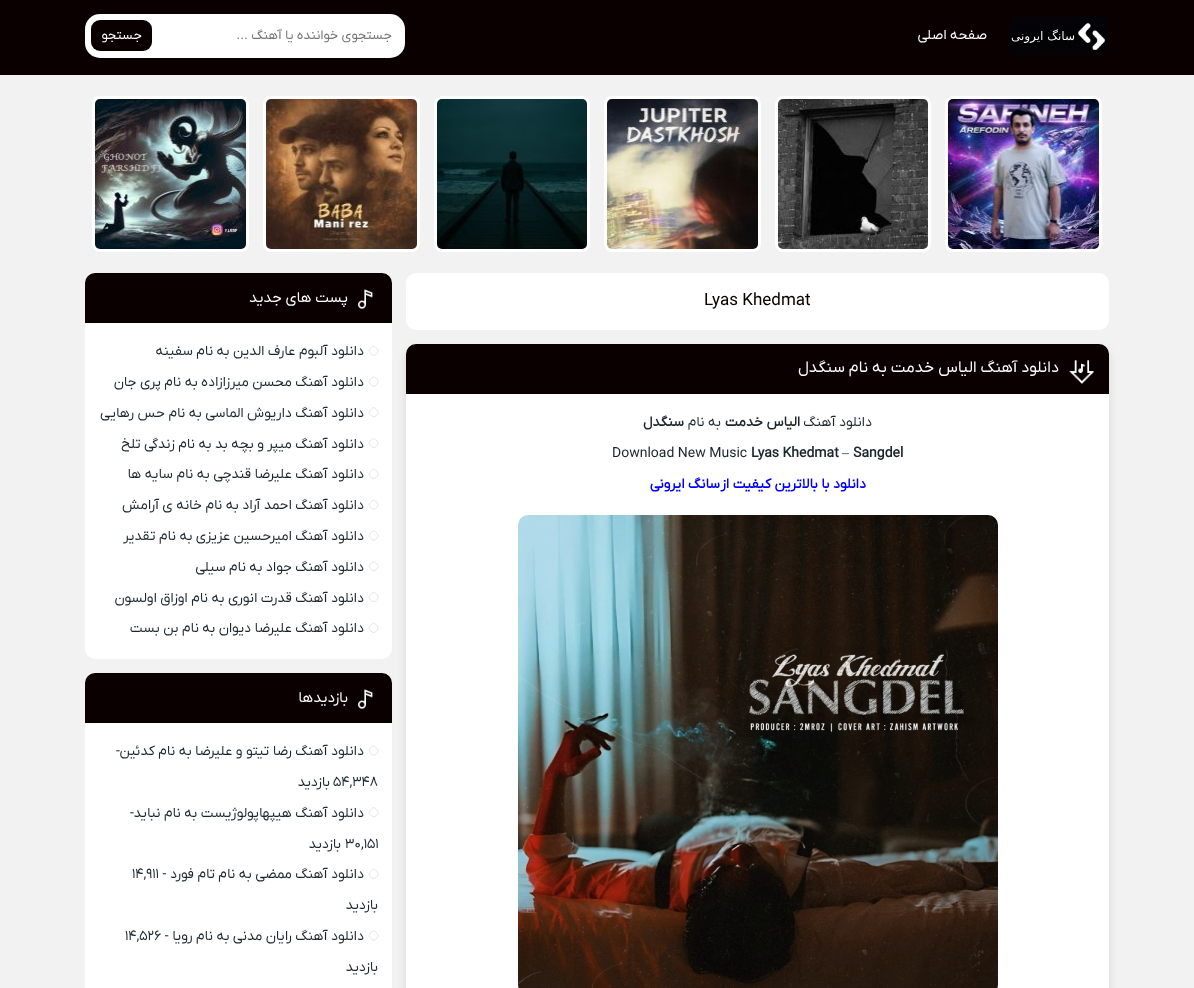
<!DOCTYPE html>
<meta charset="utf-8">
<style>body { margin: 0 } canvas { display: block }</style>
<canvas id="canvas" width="1194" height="988"></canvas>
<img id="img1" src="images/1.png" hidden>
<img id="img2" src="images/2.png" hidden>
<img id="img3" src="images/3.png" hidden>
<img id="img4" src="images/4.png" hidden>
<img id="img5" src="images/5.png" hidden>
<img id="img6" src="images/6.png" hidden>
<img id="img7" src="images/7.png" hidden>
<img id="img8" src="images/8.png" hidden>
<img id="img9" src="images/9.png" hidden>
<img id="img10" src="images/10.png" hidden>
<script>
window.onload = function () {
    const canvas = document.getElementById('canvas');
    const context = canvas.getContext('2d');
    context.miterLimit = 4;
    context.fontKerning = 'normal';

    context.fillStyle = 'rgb(242, 242, 242)';
    context.fillRect(0, 0, 1194, 988);
    context.fillStyle = 'rgb(10, 0, 0)';
    context.fillRect(0, 0, 1194, 75);
    context.drawImage(document.getElementById('img1'), 1009, 17, 100, 38);
    context.fillStyle = 'rgb(255, 255, 255)';
    context.beginPath();
    context.roundRect(85, 14, 320, 44, 15);
    context.fill();
    context.fillStyle = 'rgb(10, 0, 0)';
    context.beginPath();
    context.roundRect(91, 20, 61, 31, 9);
    context.fill();
    context.beginPath();
    context.roundRect(946.5, 97.5, 154, 153, 6.5);
    context.strokeStyle = 'rgb(255, 255, 255)';
    context.lineWidth = 3;
    context.stroke();
    context.drawImage(document.getElementById('img2'), 948, 99, 151, 150);
    context.beginPath();
    context.roundRect(776.5, 97.5, 153, 153, 6.5);
    context.stroke();
    context.drawImage(document.getElementById('img3'), 778, 99, 150, 150);
    context.beginPath();
    context.roundRect(605.5, 97.5, 154, 153, 6.5);
    context.stroke();
    context.drawImage(document.getElementById('img4'), 607, 99, 151, 150);
    context.beginPath();
    context.roundRect(435.5, 97.5, 153, 153, 6.5);
    context.stroke();
    context.drawImage(document.getElementById('img5'), 437, 99, 150, 150);
    context.beginPath();
    context.roundRect(264.5, 97.5, 154, 153, 6.5);
    context.stroke();
    context.drawImage(document.getElementById('img6'), 266, 99, 151, 150);
    context.beginPath();
    context.roundRect(93.5, 97.5, 154, 153, 6.5);
    context.stroke();
    context.drawImage(document.getElementById('img7'), 95, 99, 151, 150);
    context.fillStyle = 'rgb(255, 255, 255)';
    context.beginPath();
    context.roundRect(406, 273, 703, 57, 10);
    context.fill();
    context.fillStyle = 'rgba(0, 0, 0, 0.1)';
    context.filter = 'blur(5px)';
    context.beginPath();
    context.roundRect(406, 349, 703, 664, 10);
    context.fill();
    context.filter = 'none';
    context.fillStyle = 'rgb(255, 255, 255)';
    context.beginPath();
    context.roundRect(406, 344, 703, 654, 10);
    context.fill();
    context.fillStyle = 'rgb(10, 0, 0)';
    context.beginPath();
    context.roundRect(406, 344, 703, 50, [10, 10, 0, 0]);
    context.fill();
    context.drawImage(document.getElementById('img8'), 1069, 360, 25, 24);
    context.drawImage(document.getElementById('img9'), 518, 515, 480, 473);
    context.fillStyle = 'rgb(255, 255, 255)';
    context.beginPath();
    context.roundRect(85, 273, 307, 386, 10);
    context.fill();
    context.fillStyle = 'rgb(10, 0, 0)';
    context.beginPath();
    context.roundRect(85, 273, 307, 50, [10, 10, 0, 0]);
    context.fill();
    context.drawImage(document.getElementById('img10'), 358, 289, 15, 20);
    context.beginPath();
    context.moveTo(375.5, 347);
    context.lineTo(378, 350);
    context.bezierCurveTo(379, 352.5, 374.5, 357, 372, 354.5);
    context.bezierCurveTo(369.5, 352.5, 368, 351, 370.5, 348.5);
    context.bezierCurveTo(372, 347, 373.5, 345, 375.5, 347);
    context.closePath();
    context.moveTo(375.5, 377.5);
    context.lineTo(378, 380.5);
    context.bezierCurveTo(379, 383, 374.5, 388, 372, 385.5);
    context.bezierCurveTo(369.5, 383, 368, 382, 370.5, 379);
    context.bezierCurveTo(372, 378, 373.5, 376, 375.5, 377.5);
    context.closePath();
    context.strokeStyle = 'rgb(229, 229, 229)';
    context.lineWidth = 1;
    context.stroke();
    context.beginPath();
    context.moveTo(375.5, 408.5);
    context.lineTo(378, 411.5);
    context.bezierCurveTo(379, 414, 374.5, 418.5, 372, 416);
    context.bezierCurveTo(369.5, 414, 368, 412.5, 370.5, 410);
    context.bezierCurveTo(372, 408.5, 373.5, 406.5, 375.5, 408.5);
    context.closePath();
    context.moveTo(375.5, 439.5);
    context.lineTo(378, 442);
    context.bezierCurveTo(379, 444.5, 374.5, 449.5, 372, 447);
    context.bezierCurveTo(369.5, 445, 368, 443.5, 370.5, 440.5);
    context.bezierCurveTo(372, 439.5, 373.5, 437.5, 375.5, 439.5);
    context.closePath();
    context.stroke();
    context.beginPath();
    context.moveTo(375.5, 470);
    context.lineTo(378, 473);
    context.bezierCurveTo(379, 475.5, 374.5, 480, 372, 478);
    context.bezierCurveTo(369.5, 475.5, 368, 474, 370.5, 471.5);
    context.bezierCurveTo(372, 470, 373.5, 468, 375.5, 470);
    context.closePath();
    context.moveTo(375.5, 501);
    context.lineTo(378, 504);
    context.bezierCurveTo(379, 506, 374.5, 511, 372, 508.5);
    context.bezierCurveTo(369.5, 506.5, 368, 505, 370.5, 502.5);
    context.bezierCurveTo(372, 501, 373.5, 499, 375.5, 501);
    context.closePath();
    context.stroke();
    context.beginPath();
    context.moveTo(375.5, 531.5);
    context.lineTo(378, 534.5);
    context.bezierCurveTo(379, 537, 374.5, 542, 372, 539.5);
    context.bezierCurveTo(369.5, 537, 368, 536, 370.5, 533);
    context.bezierCurveTo(372, 532, 373.5, 530, 375.5, 531.5);
    context.closePath();
    context.moveTo(375.5, 562.5);
    context.lineTo(378, 565.5);
    context.bezierCurveTo(379, 568, 374.5, 572.5, 372, 570);
    context.bezierCurveTo(369.5, 568, 368, 566.5, 370.5, 564);
    context.bezierCurveTo(372, 562.5, 373.5, 560.5, 375.5, 562.5);
    context.closePath();
    context.stroke();
    context.beginPath();
    context.moveTo(375.5, 593);
    context.lineTo(378, 596);
    context.bezierCurveTo(379, 598.5, 374.5, 603.5, 372, 601);
    context.bezierCurveTo(369.5, 599, 368, 597.5, 370.5, 594.5);
    context.bezierCurveTo(372, 593.5, 373.5, 591.5, 375.5, 593);
    context.closePath();
    context.moveTo(375.5, 624);
    context.lineTo(378, 627);
    context.bezierCurveTo(379, 629.5, 374.5, 634, 372, 632);
    context.bezierCurveTo(369.5, 629.5, 368, 628, 370.5, 625.5);
    context.bezierCurveTo(372, 624, 373.5, 622, 375.5, 624);
    context.closePath();
    context.stroke();
    context.fillStyle = 'rgb(255, 255, 255)';
    context.beginPath();
    context.roundRect(85, 673, 307, 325, 10);
    context.fill();
    context.fillStyle = 'rgb(10, 0, 0)';
    context.beginPath();
    context.roundRect(85, 673, 307, 50, [10, 10, 0, 0]);
    context.fill();
    context.drawImage(document.getElementById('img10'), 358, 689, 15, 20);
    context.beginPath();
    context.moveTo(375.5, 747);
    context.lineTo(378, 750);
    context.bezierCurveTo(379, 752, 374.5, 757, 372, 754.5);
    context.bezierCurveTo(369.5, 752.5, 368, 751, 370.5, 748);
    context.bezierCurveTo(372, 747, 373.5, 745, 375.5, 747);
    context.closePath();
    context.stroke();
    context.beginPath();
    context.moveTo(375.5, 808.5);
    context.lineTo(378, 811.5);
    context.bezierCurveTo(379, 814, 374.5, 818.5, 372, 816);
    context.bezierCurveTo(369.5, 814, 368, 812.5, 370.5, 810);
    context.bezierCurveTo(372, 808.5, 373.5, 806.5, 375.5, 808.5);
    context.closePath();
    context.stroke();
    context.beginPath();
    context.moveTo(375.5, 870);
    context.lineTo(378, 873);
    context.bezierCurveTo(379, 875.5, 374.5, 880, 372, 878);
    context.bezierCurveTo(369.5, 875.5, 368, 874, 370.5, 871.5);
    context.bezierCurveTo(372, 870, 373.5, 868, 375.5, 870);
    context.closePath();
    context.stroke();
    context.beginPath();
    context.moveTo(375.5, 931.5);
    context.lineTo(378, 934.5);
    context.bezierCurveTo(379, 937, 374.5, 942, 372, 939.5);
    context.bezierCurveTo(369.5, 937, 368, 936, 370.5, 933);
    context.bezierCurveTo(372, 931.5, 373.5, 930, 375.5, 931.5);
    context.closePath();
    context.stroke();
    context.direction = 'rtl';
    context.font = '14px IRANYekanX';
    context.fillStyle = 'rgb(255, 255, 255)';
    context.fillText('صفحه اصلی', 987, 39);
    context.font = '13.25px IRANYekanX';
    context.fillStyle = 'rgb(117, 117, 117)';
    context.fillText('جستجوی خواننده یا آهنگ ...', 392, 39);
    context.fillStyle = 'rgb(255, 255, 255)';
    context.fillText('جستجو', 142, 39);
    context.direction = 'ltr';
    context.font = '17px IRANYekanX';
    context.fillStyle = 'rgb(10, 0, 0)';
    context.fillText('Lyas Khedmat', 704, 305);
    context.direction = 'rtl';
    context.font = '16px IRANYekanX';
    context.fillStyle = 'rgb(255, 255, 255)';
    context.fillText('دانلود آهنگ الیاس خدمت به نام سنگدل', 1059, 372);
    context.font = '14px IRANYekanX';
    context.fillStyle = 'rgb(27, 38, 44)';
    context.fillText('دانلود آهنگ', 872, 426);
    context.font = 'bold 14px IRANYekanX';
    context.fillText('الیاس خدمت', 800, 426);
    context.font = '14px IRANYekanX';
    context.fillText('به نام', 721, 426);
    context.font = 'bold 14px IRANYekanX';
    context.fillText('سنگدل', 684, 426);
    context.direction = 'ltr';
    context.fillText('Sangdel', 853, 457);
    context.font = '14px Liberation Serif';
    context.fillText('–', 842, 457);
    context.font = 'bold 14px IRANYekanX';
    context.fillText('Lyas Khedmat', 751, 457);
    context.font = '14px IRANYekanX';
    context.fillText('Download New Music', 612, 457);
    context.direction = 'rtl';
    context.font = 'bold 14px IRANYekanX';
    context.fillStyle = 'rgb(0, 0, 255)';
    context.fillText('دانلود با بالاترین کیفیت از', 866, 488);
    context.fillText('سانگ ایرونی', 720, 488);
    context.font = '15px IRANYekanX';
    context.fillStyle = 'rgb(255, 255, 255)';
    context.fillText('پست های جدید', 348, 302);
    context.font = '14px IRANYekanX';
    context.fillStyle = 'rgb(27, 38, 44)';
    context.fillText('دانلود آلبوم عارف الدین به نام سفینه', 364, 355);
    context.fillText('دانلود آهنگ محسن میرزازاده به نام پری جان', 364, 386);
    context.fillText('دانلود آهنگ داریوش الماسی به نام حس رهایی', 364, 417);
    context.fillText('دانلود آهنگ میپر و بچه بد به نام زندگی تلخ', 364, 448);
    context.fillText('دانلود آهنگ علیرضا قندچی به نام سایه ها', 364, 478);
    context.fillText('دانلود آهنگ احمد آراد به نام خانه ی آرامش', 364, 509);
    context.fillText('دانلود آهنگ امیرحسین عزیزی به نام تقدیر', 364, 540);
    context.fillText('دانلود آهنگ جواد به نام سیلی', 364, 571);
    context.fillText('دانلود آهنگ قدرت انوری به نام اوزاق اولسون', 364, 602);
    context.fillText('دانلود آهنگ علیرضا دیوان به نام بن بست', 364, 632);
    context.font = '15px IRANYekanX';
    context.fillStyle = 'rgb(255, 255, 255)';
    context.fillText('بازدیدها', 348, 702);
    context.font = '14px IRANYekanX';
    context.fillStyle = 'rgb(27, 38, 44)';
    context.fillText('دانلود آهنگ رضا تیتو و علیرضا به نام کدئین', 364, 755);
    context.direction = 'ltr';
    context.fillText('-', 116, 755);
    context.fillText('۵۴,۳۴۸', 333, 786);
    context.direction = 'rtl';
    context.fillText('بازدید', 330, 786);
    context.fillText('دانلود آهنگ هیپهاپولوژیست به نام نباید', 364, 817);
    context.direction = 'ltr';
    context.fillText('-', 130, 817);
    context.fillText('۳۰,۱۵۱', 345, 848);
    context.direction = 'rtl';
    context.fillText('بازدید', 341, 848);
    context.fillText('دانلود آهنگ ممضی به نام تام فورد', 364, 878);
    context.direction = 'ltr';
    context.fillText('۱۴,۹۱۱ -', 132, 878);
    context.direction = 'rtl';
    context.fillText('بازدید', 378, 909);
    context.fillText('دانلود آهنگ رایان مدنی به نام رویا', 364, 940);
    context.direction = 'ltr';
    context.fillText('۱۴,۵۲۶ -', 125, 940);
    context.direction = 'rtl';
    context.fillText('بازدید', 378, 971);
};
</script>
